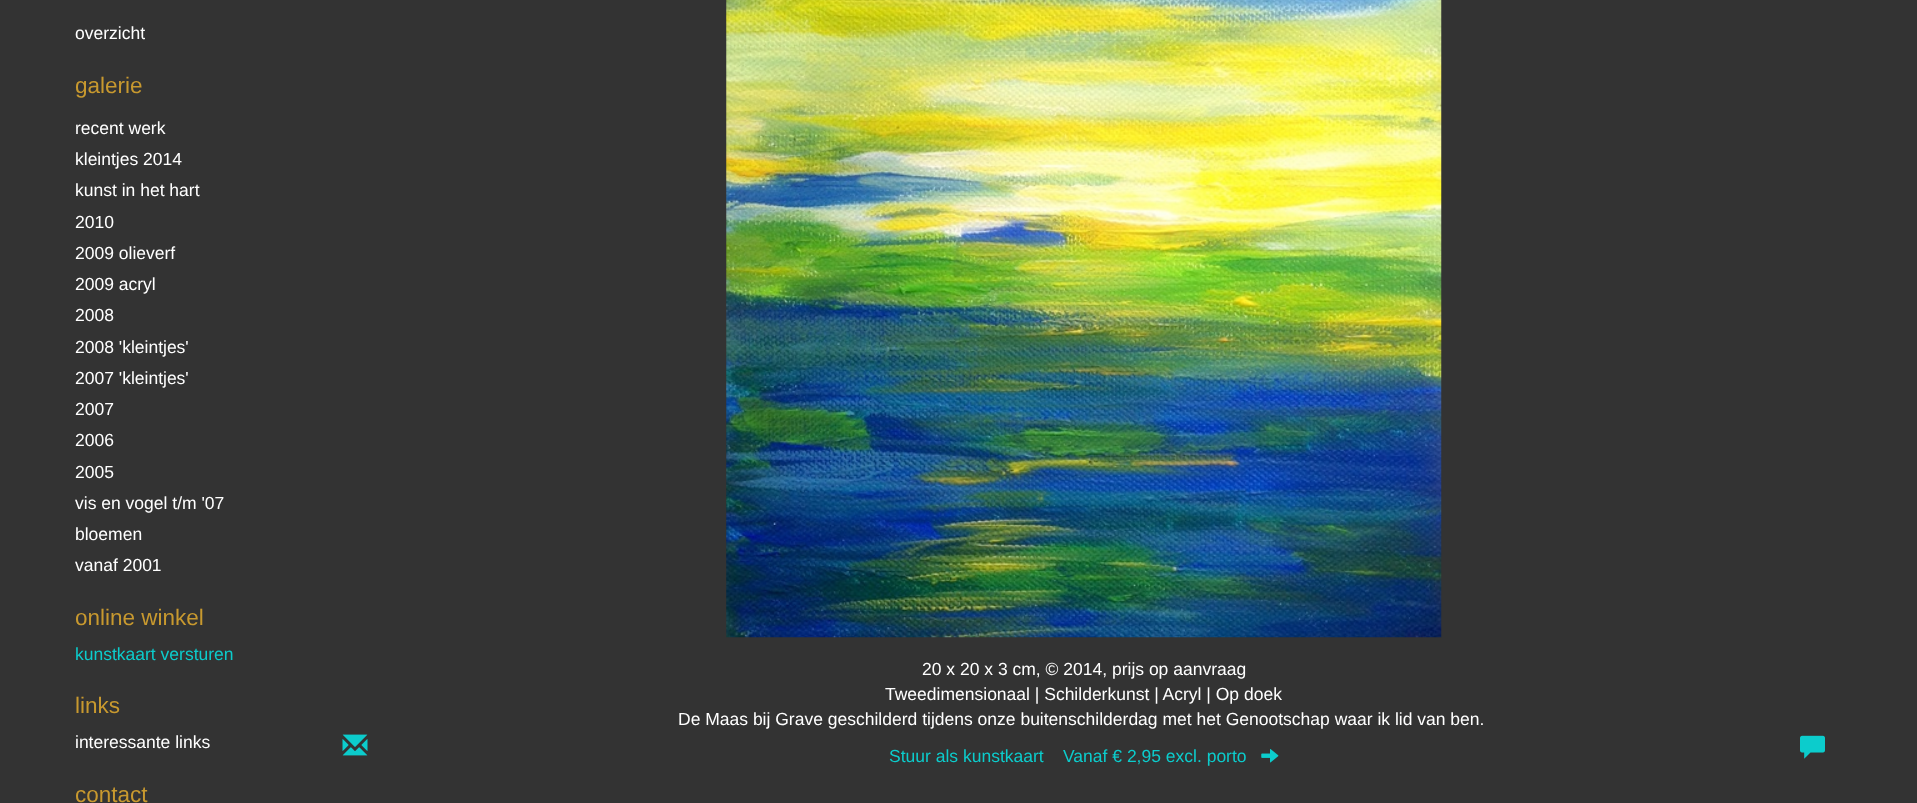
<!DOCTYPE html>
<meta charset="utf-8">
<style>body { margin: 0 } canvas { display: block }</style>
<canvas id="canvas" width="1917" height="803"></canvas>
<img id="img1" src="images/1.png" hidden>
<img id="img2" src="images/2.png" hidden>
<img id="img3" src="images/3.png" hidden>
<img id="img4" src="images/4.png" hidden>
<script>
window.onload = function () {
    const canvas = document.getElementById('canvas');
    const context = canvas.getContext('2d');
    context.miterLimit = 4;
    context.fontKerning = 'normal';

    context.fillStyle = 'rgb(51, 51, 51)';
    context.fillRect(0, 0, 1917, 803);
    context.drawImage(document.getElementById('img1'), 726, 0, 716, 638);
    context.drawImage(document.getElementById('img2'), 342, 734, 26, 22);
    context.drawImage(document.getElementById('img3'), 1261, 749, 18, 14);
    context.drawImage(document.getElementById('img4'), 1800, 735, 25, 24);
    context.font = '17.5px Liberation Sans';
    context.fillStyle = 'rgb(255, 255, 255)';
    context.fillText('overzicht', 75, 39);
    context.font = '22.5px Liberation Sans';
    context.fillStyle = 'rgb(200, 153, 47)';
    context.fillText('galerie', 75, 93);
    context.font = '17.5px Liberation Sans';
    context.fillStyle = 'rgb(255, 255, 255)';
    context.fillText('recent werk', 75, 134);
    context.fillText('kleintjes 2014', 75, 165);
    context.fillText('kunst in het hart', 75, 196);
    context.fillText('2010', 75, 228);
    context.fillText('2009 olieverf', 75, 259);
    context.fillText('2009 acryl', 75, 290);
    context.fillText('2008', 75, 321);
    context.fillText('2008 \'kleintjes\'', 75, 353);
    context.fillText('2007 \'kleintjes\'', 75, 384);
    context.fillText('2007', 75, 415);
    context.fillText('2006', 75, 446);
    context.fillText('2005', 75, 478);
    context.fillText('vis en vogel t/m \'07', 75, 509);
    context.fillText('bloemen', 75, 540);
    context.fillText('vanaf 2001', 75, 571);
    context.font = '22.5px Liberation Sans';
    context.fillStyle = 'rgb(200, 153, 47)';
    context.fillText('online winkel', 75, 625);
    context.font = '17.5px Liberation Sans';
    context.fillStyle = 'rgb(12, 204, 204)';
    context.fillText('kunstkaart versturen', 75, 660);
    context.font = '22.5px Liberation Sans';
    context.fillStyle = 'rgb(200, 153, 47)';
    context.fillText('links', 75, 713);
    context.font = '17.5px Liberation Sans';
    context.fillStyle = 'rgb(255, 255, 255)';
    context.fillText('interessante links', 75, 748);
    context.font = '22.5px Liberation Sans';
    context.fillStyle = 'rgb(200, 153, 47)';
    context.fillText('contact', 75, 802);
    context.font = '17.5px Liberation Sans';
    context.fillStyle = 'rgb(255, 255, 255)';
    context.fillText('20 x 20 x 3 cm, © 2014, prijs op aanvraag', 922, 675);
    context.fillText('Tweedimensionaal | Schilderkunst | Acryl | Op doek', 885, 700);
    context.fillText('De Maas bij Grave geschilderd tijdens onze buitenschilderdag met het Genootschap waar ik lid van ben.', 678, 725);
    context.fillStyle = 'rgb(12, 204, 204)';
    context.fillText('Stuur als kunstkaart', 889, 762);
    context.fillText('Vanaf € 2,95 excl. porto', 1063, 762);
};
</script>
